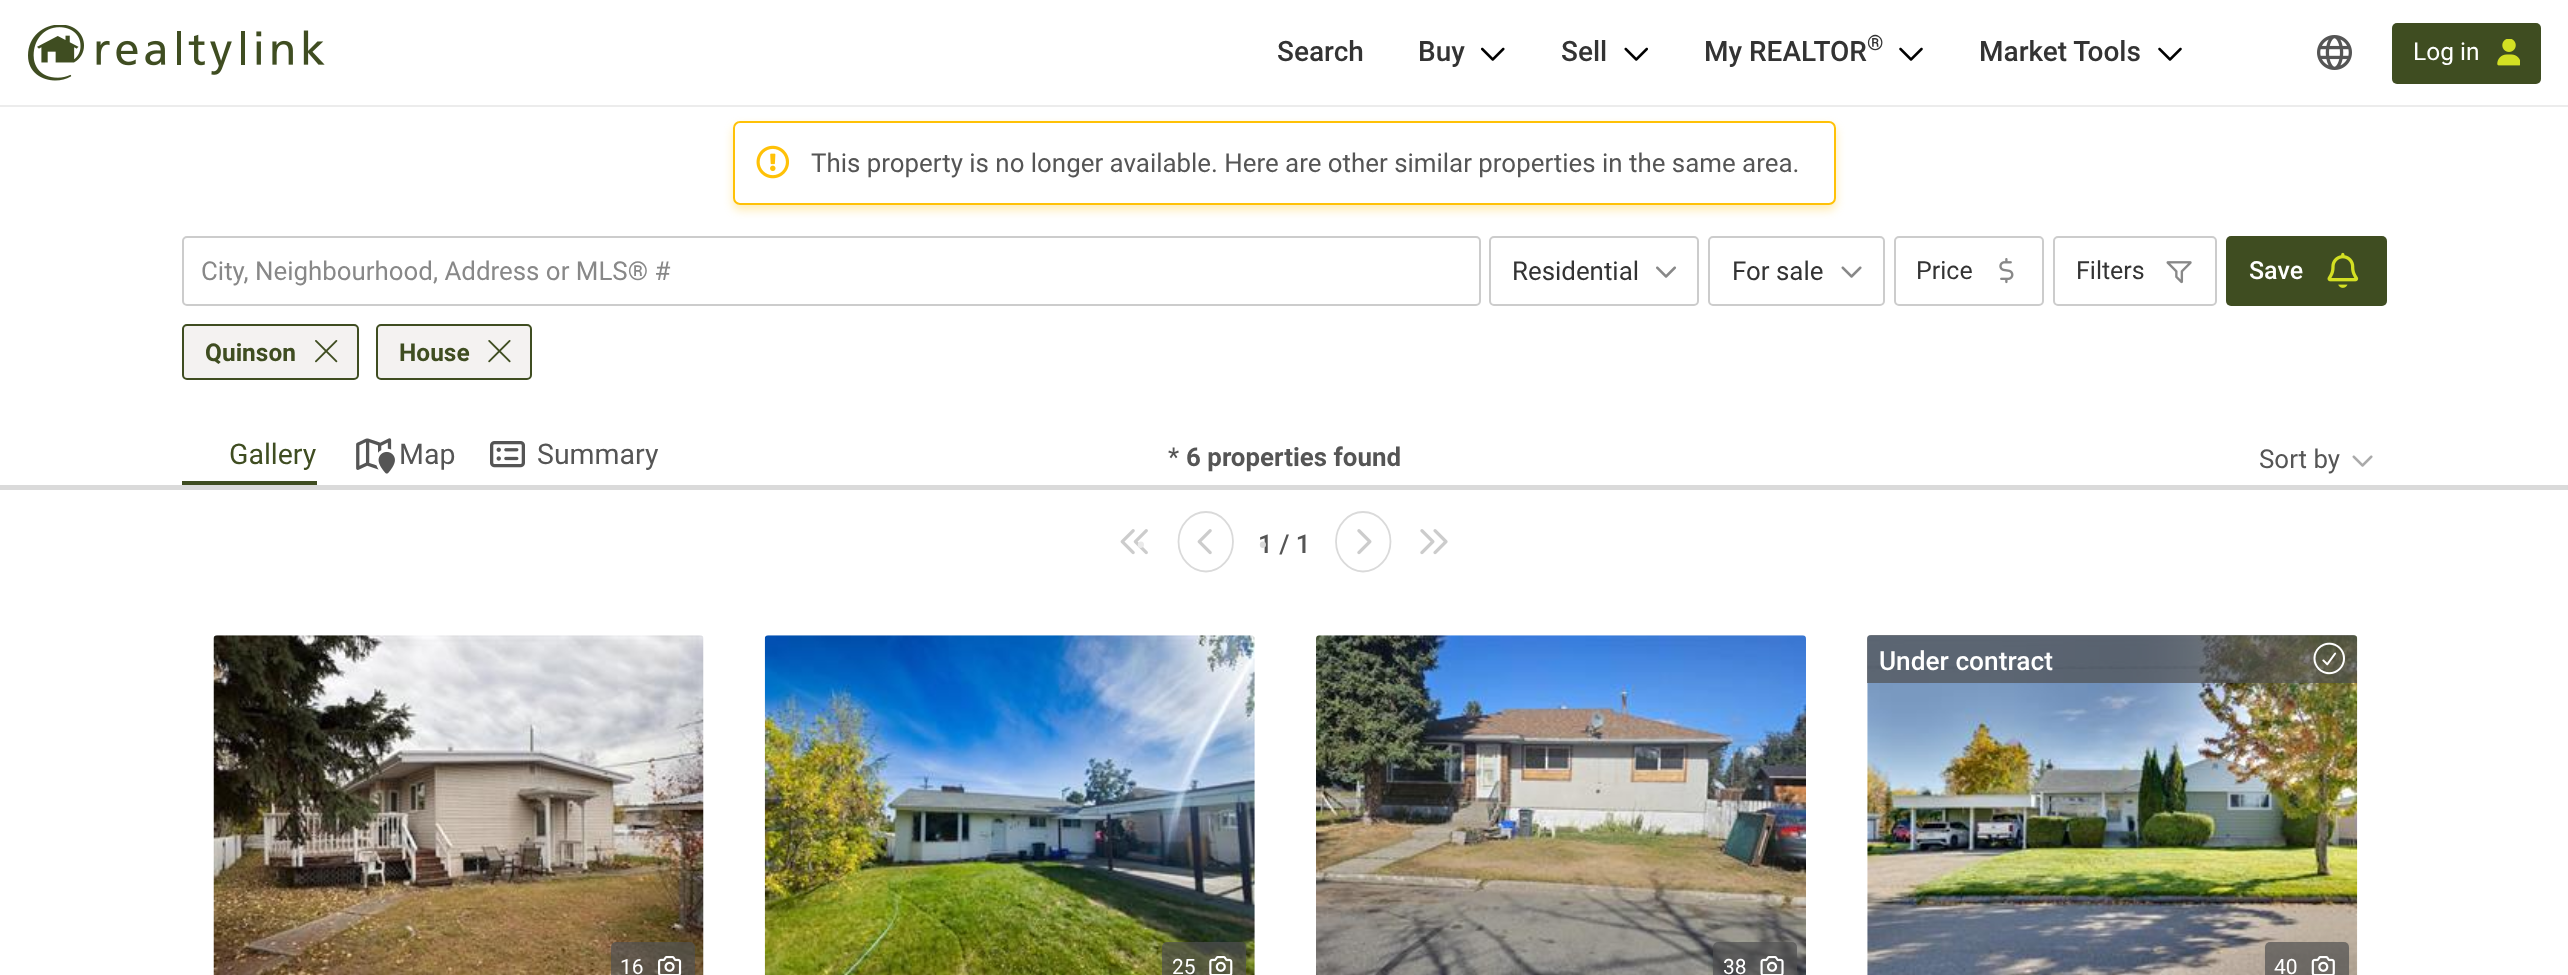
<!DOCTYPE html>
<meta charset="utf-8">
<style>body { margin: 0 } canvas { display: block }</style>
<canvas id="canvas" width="2568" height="975"></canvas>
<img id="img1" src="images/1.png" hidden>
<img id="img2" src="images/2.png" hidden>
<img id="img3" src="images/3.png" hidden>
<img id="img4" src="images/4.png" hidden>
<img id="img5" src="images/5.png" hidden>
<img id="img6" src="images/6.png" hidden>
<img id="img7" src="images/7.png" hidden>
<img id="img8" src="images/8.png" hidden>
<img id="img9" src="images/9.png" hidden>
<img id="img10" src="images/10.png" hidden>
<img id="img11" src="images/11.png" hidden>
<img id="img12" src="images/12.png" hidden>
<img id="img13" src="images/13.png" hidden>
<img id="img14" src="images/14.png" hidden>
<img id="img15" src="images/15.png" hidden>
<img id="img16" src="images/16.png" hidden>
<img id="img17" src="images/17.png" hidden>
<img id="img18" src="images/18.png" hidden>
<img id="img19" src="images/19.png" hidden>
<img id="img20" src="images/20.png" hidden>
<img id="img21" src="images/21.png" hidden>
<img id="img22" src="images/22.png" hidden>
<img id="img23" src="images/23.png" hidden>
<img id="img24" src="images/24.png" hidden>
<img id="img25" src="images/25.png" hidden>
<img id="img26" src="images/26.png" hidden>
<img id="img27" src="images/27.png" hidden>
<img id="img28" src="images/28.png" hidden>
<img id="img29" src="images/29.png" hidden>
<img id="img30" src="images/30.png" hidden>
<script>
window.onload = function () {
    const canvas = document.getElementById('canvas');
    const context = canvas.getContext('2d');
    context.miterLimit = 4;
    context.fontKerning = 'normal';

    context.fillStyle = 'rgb(255, 255, 255)';
    context.fillRect(0, 0, 2568, 975);
    context.fillStyle = 'rgb(236, 236, 236)';
    context.fillRect(0, 105, 2568, 2);
    context.drawImage(document.getElementById('img1'), 28, 25, 297, 56);
    context.drawImage(document.getElementById('img2'), 1481, 47, 24, 14);
    context.drawImage(document.getElementById('img3'), 1624, 47, 24, 14);
    context.drawImage(document.getElementById('img4'), 1899, 47, 24, 14);
    context.drawImage(document.getElementById('img4'), 2158, 47, 24, 14);
    context.drawImage(document.getElementById('img5'), 2317, 35, 35, 35);
    context.fillStyle = 'rgb(63, 77, 33)';
    context.beginPath();
    context.roundRect(2392, 23, 149, 61, 5);
    context.fill();
    context.drawImage(document.getElementById('img6'), 2497, 39, 23, 27);
    context.fillStyle = 'rgba(255, 193, 7, 0.3)';
    context.filter = 'blur(5px)';
    context.beginPath();
    context.roundRect(733, 126, 1103, 84, 7);
    context.fill();
    context.filter = 'none';
    context.fillStyle = 'rgb(255, 255, 255)';
    context.beginPath();
    context.roundRect(733, 121, 1103, 84, 7);
    context.fill();
    context.drawImage(document.getElementById('img7'), 756, 145, 33, 34);
    context.beginPath();
    context.roundRect(734, 122, 1101, 82, 6);
    context.strokeStyle = 'rgb(255, 193, 7)';
    context.lineWidth = 2;
    context.stroke();
    context.beginPath();
    context.roundRect(183, 237, 1297, 68, 4);
    context.strokeStyle = 'rgb(204, 204, 204)';
    context.stroke();
    context.beginPath();
    context.roundRect(1490, 237, 208, 68, 4);
    context.stroke();
    context.drawImage(document.getElementById('img8'), 1656, 266, 21, 12);
    context.beginPath();
    context.roundRect(1709, 237, 175, 68, 4);
    context.stroke();
    context.drawImage(document.getElementById('img9'), 1841, 266, 21, 12);
    context.beginPath();
    context.roundRect(1895, 237, 148, 68, 4);
    context.stroke();
    context.drawImage(document.getElementById('img10'), 1999, 258, 15, 26);
    context.beginPath();
    context.roundRect(2054, 237, 162, 68, 4);
    context.stroke();
    context.drawImage(document.getElementById('img11'), 2166, 261, 26, 23);
    context.fillStyle = 'rgb(63, 77, 33)';
    context.beginPath();
    context.roundRect(2226, 236, 161, 70, 5);
    context.fill();
    context.drawImage(document.getElementById('img12'), 2327, 252, 32, 36);
    context.fillStyle = 'rgb(244, 242, 241)';
    context.beginPath();
    context.roundRect(183, 325, 175, 54, 4);
    context.fill();
    context.strokeStyle = 'rgb(63, 77, 33)';
    context.stroke();
    context.drawImage(document.getElementById('img13'), 315, 340, 23, 23);
    context.beginPath();
    context.roundRect(377, 325, 154, 54, 4);
    context.fill();
    context.stroke();
    context.drawImage(document.getElementById('img14'), 488, 340, 23, 23);
    context.fillStyle = 'rgb(218, 218, 218)';
    context.fillRect(0, 485, 2568, 5);
    context.fillStyle = 'rgb(63, 77, 33)';
    context.fillRect(182, 481, 135, 4);
    context.drawImage(document.getElementById('img15'), 356, 438, 39, 36);
    context.drawImage(document.getElementById('img16'), 490, 441, 35, 27);
    context.drawImage(document.getElementById('img17'), 2352, 455, 21, 12);
    context.drawImage(document.getElementById('img18'), 1120, 529, 28, 26);
    context.beginPath();
    context.moveTo(1206, 512);
    context.bezierCurveTo(1220.5, 512, 1233, 525, 1233, 541.5);
    context.bezierCurveTo(1233, 558, 1220.5, 571.5, 1206, 571.5);
    context.bezierCurveTo(1191, 571.5, 1178.5, 558, 1178.5, 541.5);
    context.bezierCurveTo(1178.5, 525, 1191, 512, 1206, 512);
    context.closePath();
    context.strokeStyle = 'rgb(218, 218, 218)';
    context.lineWidth = 1.8;
    context.stroke();
    context.drawImage(document.getElementById('img19'), 1197, 529, 15, 26);
    context.beginPath();
    context.moveTo(1363, 512);
    context.bezierCurveTo(1378, 512, 1390.5, 525, 1390.5, 541.5);
    context.bezierCurveTo(1390.5, 558, 1378, 571.5, 1363, 571.5);
    context.bezierCurveTo(1348.5, 571.5, 1336, 558, 1336, 541.5);
    context.bezierCurveTo(1336, 525, 1348.5, 512, 1363, 512);
    context.closePath();
    context.stroke();
    context.drawImage(document.getElementById('img20'), 1357, 529, 15, 26);
    context.drawImage(document.getElementById('img21'), 1420, 529, 28, 26);
    context.drawImage(document.getElementById('img22'), 213, 635, 491, 340);
    context.fillStyle = 'rgba(80, 80, 80, 0.7)';
    context.beginPath();
    context.roundRect(611, 942, 84, 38, 5);
    context.fill();
    context.drawImage(document.getElementById('img23'), 658, 956, 24, 19);
    context.drawImage(document.getElementById('img24'), 764, 635, 491, 340);
    context.beginPath();
    context.roundRect(1162, 942, 84, 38, 5);
    context.fill();
    context.drawImage(document.getElementById('img25'), 1209, 956, 24, 19);
    context.drawImage(document.getElementById('img26'), 1316, 635, 490, 340);
    context.beginPath();
    context.roundRect(1713, 942, 84, 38, 5);
    context.fill();
    context.drawImage(document.getElementById('img27'), 1760, 956, 24, 19);
    context.drawImage(document.getElementById('img28'), 1867, 635, 491, 340);
    context.beginPath();
    context.roundRect(1867, 635, 490, 48, [4, 4, 0, 0]);
    context.fill();
    context.drawImage(document.getElementById('img29'), 2313, 642, 32, 33);
    context.beginPath();
    context.roundRect(2265, 942, 84, 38, 5);
    context.fill();
    context.drawImage(document.getElementById('img30'), 2311, 956, 24, 19);
    context.font = '500 28px Roboto';
    context.fillStyle = 'rgb(51, 51, 51)';
    context.fillText('Search', 1277, 61);
    context.fillText('Buy', 1418, 61);
    context.fillText('Sell', 1561, 61);
    context.fillText('My REALTOR', 1704, 61);
    context.font = '500 21px Roboto';
    context.fillText('®', 1867, 50);
    context.font = '500 28px Roboto';
    context.fillText('Market Tools', 1979, 61);
    context.font = '24.5px Roboto';
    context.fillStyle = 'rgb(255, 255, 255)';
    context.fillText('Log in', 2413, 60);
    context.font = '25.9px Roboto';
    context.fillStyle = 'rgb(85, 85, 85)';
    context.fillText('This property is no longer available. Here are other similar properties in the same area.', 811, 172);
    context.fillStyle = 'rgb(136, 136, 136)';
    context.fillText('City, Neighbourhood, Address or MLS® #', 201, 280);
    context.fillStyle = 'rgb(51, 51, 51)';
    context.fillText('Residential', 1512, 280);
    context.fillText('For sale', 1732, 280);
    context.font = '25px Roboto';
    context.fillText('Price', 1916, 279);
    context.fillText('Filters', 2076, 279);
    context.font = '500 25px Roboto';
    context.fillStyle = 'rgb(255, 255, 255)';
    context.fillText('Save', 2249, 279);
    context.font = 'bold 24.5px Roboto';
    context.fillStyle = 'rgb(63, 77, 33)';
    context.fillText('Quinson', 205, 361);
    context.fillText('House', 399, 361);
    context.font = '28.5px Roboto';
    context.fillText('Gallery', 229, 464);
    context.fillStyle = 'rgb(85, 85, 85)';
    context.fillText('Map', 399, 464);
    context.fillText('Summary', 537, 464);
    context.font = '25.9px Roboto';
    context.fillText('*', 1168, 466);
    context.font = 'bold 25.9px Roboto';
    context.fillText('6 properties found', 1186, 466);
    context.font = '25.9px Roboto';
    context.fillText('Sort by', 2259, 468);
    context.font = '500 28px Roboto';
    context.fillStyle = 'rgb(234, 234, 234)';
    context.fillText('•', 1136, 555);
    context.font = '500 25.9px Roboto';
    context.fillStyle = 'rgb(85, 85, 85)';
    context.fillText('1 / 1', 1258, 553);
    context.font = '500 28px Roboto';
    context.fillStyle = 'rgb(217, 217, 217)';
    context.fillText('•', 1258, 555);
    context.font = '21px Roboto';
    context.fillStyle = 'rgb(255, 255, 255)';
    context.fillText('16', 620, 974);
    context.fillText('25', 1172, 974);
    context.fillText('38', 1723, 974);
    context.font = '500 26.25px Roboto';
    context.fillText('Under contract', 1879, 670);
    context.font = '21px Roboto';
    context.fillText('40', 2274, 974);
};
</script>
